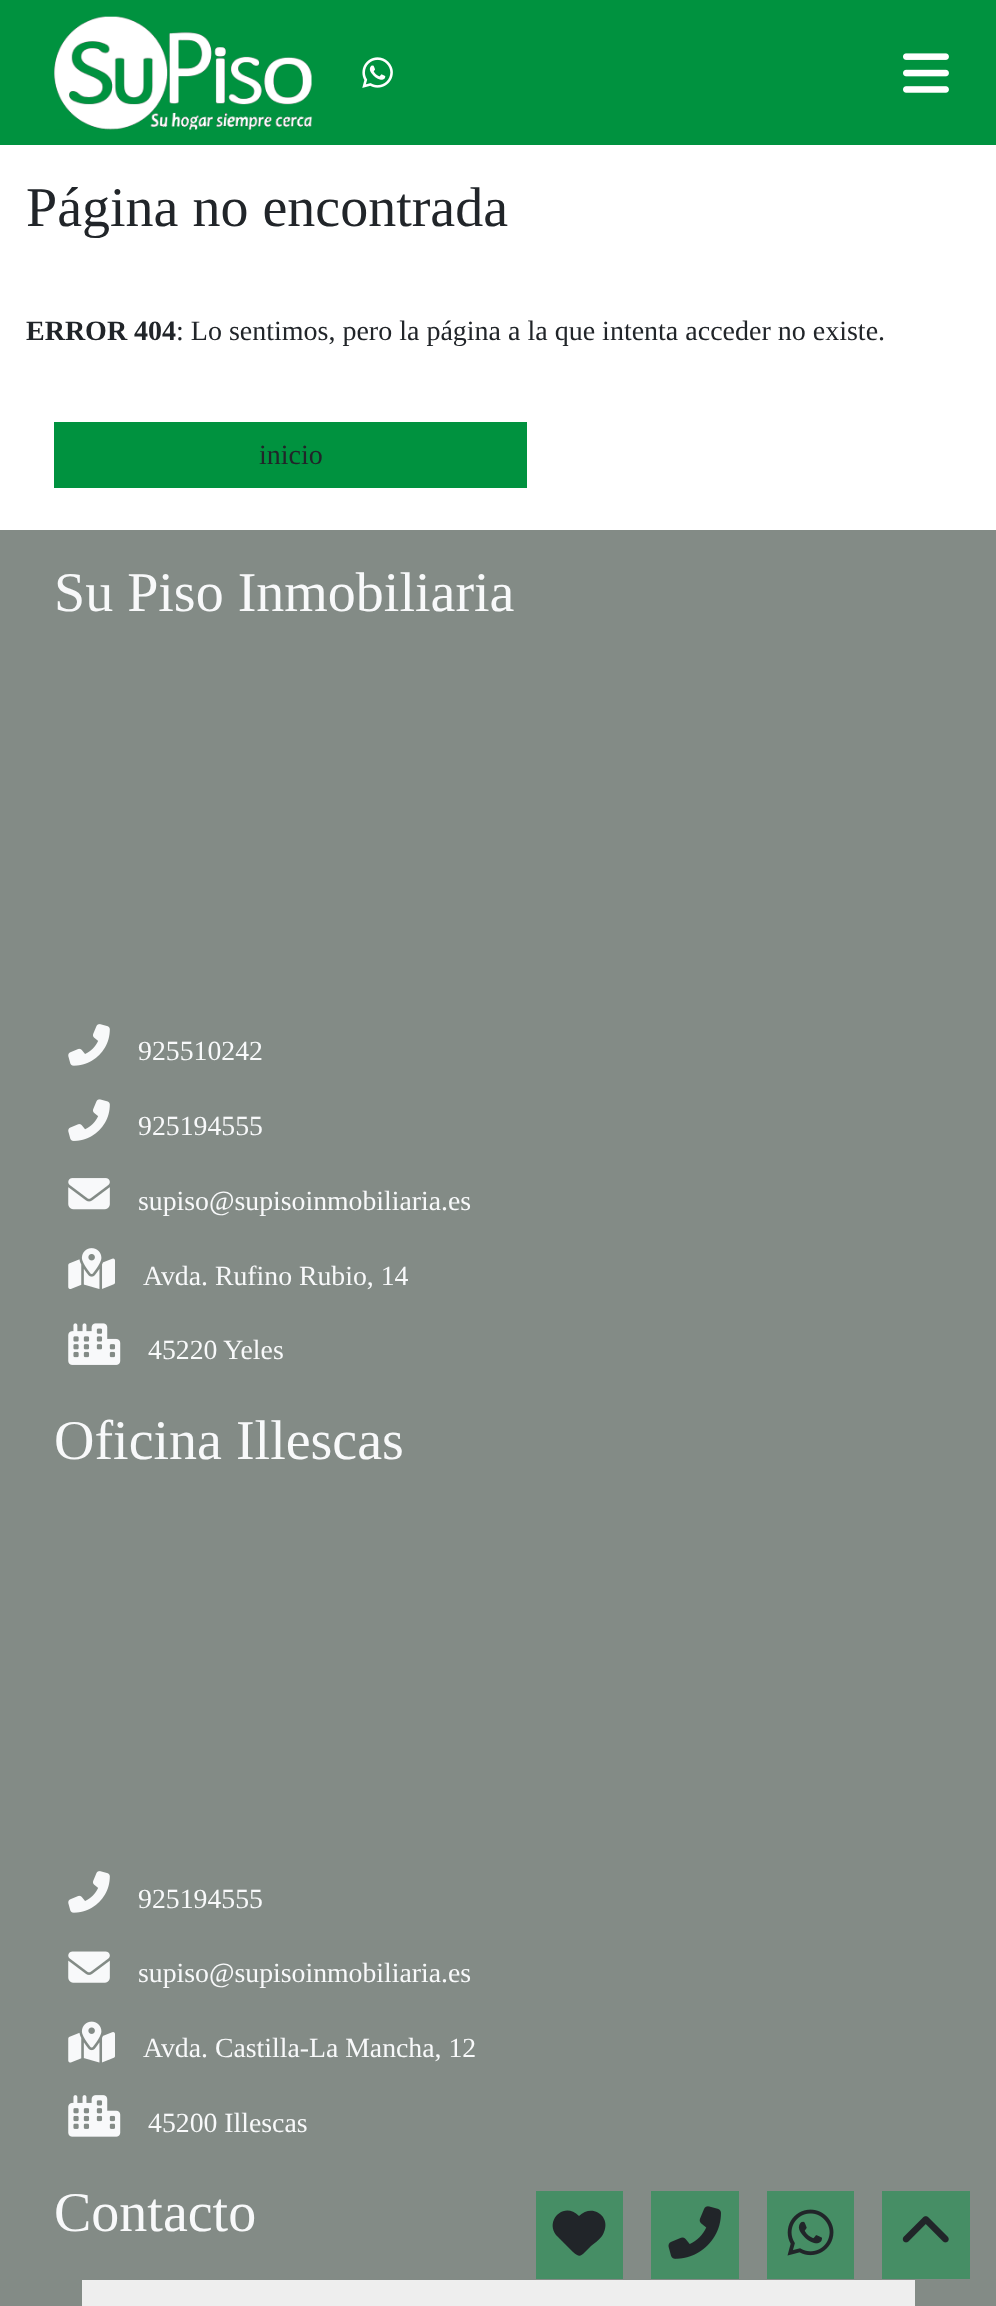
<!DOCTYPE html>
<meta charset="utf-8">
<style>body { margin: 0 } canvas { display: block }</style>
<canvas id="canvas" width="996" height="2306"></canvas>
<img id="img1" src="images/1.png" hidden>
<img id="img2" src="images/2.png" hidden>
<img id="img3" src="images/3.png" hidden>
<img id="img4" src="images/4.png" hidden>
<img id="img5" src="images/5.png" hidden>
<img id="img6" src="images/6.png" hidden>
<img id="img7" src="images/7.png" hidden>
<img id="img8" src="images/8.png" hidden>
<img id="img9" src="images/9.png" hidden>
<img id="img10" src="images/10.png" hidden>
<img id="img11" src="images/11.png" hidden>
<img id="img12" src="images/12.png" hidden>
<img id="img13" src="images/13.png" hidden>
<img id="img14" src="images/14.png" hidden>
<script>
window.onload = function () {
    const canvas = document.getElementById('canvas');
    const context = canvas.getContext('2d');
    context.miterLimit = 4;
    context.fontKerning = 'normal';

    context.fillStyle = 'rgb(255, 255, 255)';
    context.fillRect(0, 0, 996, 2306);
    context.fillStyle = 'rgb(0, 146, 63)';
    context.fillRect(0, 0, 996, 145);
    context.drawImage(document.getElementById('img1'), 54, 16, 259, 114);
    context.drawImage(document.getElementById('img2'), 362, 57, 31, 31);
    context.drawImage(document.getElementById('img3'), 903, 53, 46, 40);
    context.fillRect(54, 422, 473, 66);
    context.fillStyle = 'rgb(131, 139, 134)';
    context.fillRect(0, 530, 996, 1776);
    context.drawImage(document.getElementById('img4'), 68, 1024, 42, 42);
    context.drawImage(document.getElementById('img5'), 68, 1099, 42, 42);
    context.drawImage(document.getElementById('img6'), 68, 1178, 42, 32);
    context.drawImage(document.getElementById('img7'), 68, 1248, 47, 41);
    context.drawImage(document.getElementById('img8'), 68, 1323, 53, 42);
    context.drawImage(document.getElementById('img4'), 68, 1871, 42, 42);
    context.drawImage(document.getElementById('img9'), 68, 1951, 42, 32);
    context.drawImage(document.getElementById('img10'), 68, 2021, 47, 42);
    context.drawImage(document.getElementById('img11'), 68, 2095, 53, 42);
    context.fillStyle = 'rgb(238, 238, 238)';
    context.fillRect(82, 2280, 833, 26);
    context.fillStyle = 'rgb(70, 142, 101)';
    context.fillRect(536, 2191, 87, 88);
    context.fillStyle = 'rgb(33, 37, 41)';
    context.beginPath();
    context.moveTo(558, 2237);
    context.lineTo(576, 2254);
    context.lineTo(558, 2237);
    context.lineTo(573, 2252);
    context.bezierCurveTo(579, 2257, 580, 2257, 585, 2252);
    context.lineTo(591, 2246);
    context.bezierCurveTo(596, 2242, 602, 2238, 604, 2232);
    context.bezierCurveTo(611, 2216, 592, 2203, 579, 2216);
    context.bezierCurveTo(563, 2200, 543, 2223, 558, 2237);
    context.closePath();
    context.fill();
    context.fillStyle = 'rgb(70, 142, 101)';
    context.fillRect(651, 2191, 88, 88);
    context.drawImage(document.getElementById('img12'), 668, 2206, 53, 53);
    context.fillRect(767, 2191, 87, 88);
    context.drawImage(document.getElementById('img13'), 787, 2209, 47, 47);
    context.fillRect(882, 2191, 88, 88);
    context.drawImage(document.getElementById('img14'), 902, 2216, 47, 27);
    context.font = '56px Liberation Serif';
    context.fillStyle = 'rgb(33, 37, 41)';
    context.fillText('Página no encontrada', 26, 226);
    context.font = 'bold 28px Liberation Serif';
    context.fillText('ERROR 404', 26, 340);
    context.font = '28px Liberation Serif';
    context.fillText(': Lo sentimos, pero la página a la que intenta acceder no existe.', 176, 340);
    context.fillText('inicio', 259, 464);
    context.font = '56px Liberation Serif';
    context.fillStyle = 'rgb(248, 249, 250)';
    context.fillText('Su Piso Inmobiliaria', 54, 611);
    context.font = '27.75px Liberation Serif';
    context.fillText('925510242', 138, 1060);
    context.fillText('925194555', 138, 1135);
    context.fillText('supiso@supisoinmobiliaria.es', 138, 1210);
    context.fillText('Avda. Rufino Rubio, 14', 143, 1285);
    context.fillText('45220 Yeles', 148, 1359);
    context.font = '56px Liberation Serif';
    context.fillText('Oficina Illescas', 54, 1459);
    context.font = '27.75px Liberation Serif';
    context.fillText('925194555', 138, 1908);
    context.fillText('supiso@supisoinmobiliaria.es', 138, 1982);
    context.fillText('Avda. Castilla-La Mancha, 12', 143, 2057);
    context.fillText('45200 Illescas', 148, 2132);
    context.font = '56px Liberation Serif';
    context.fillText('Contacto', 54, 2231);
};
</script>
